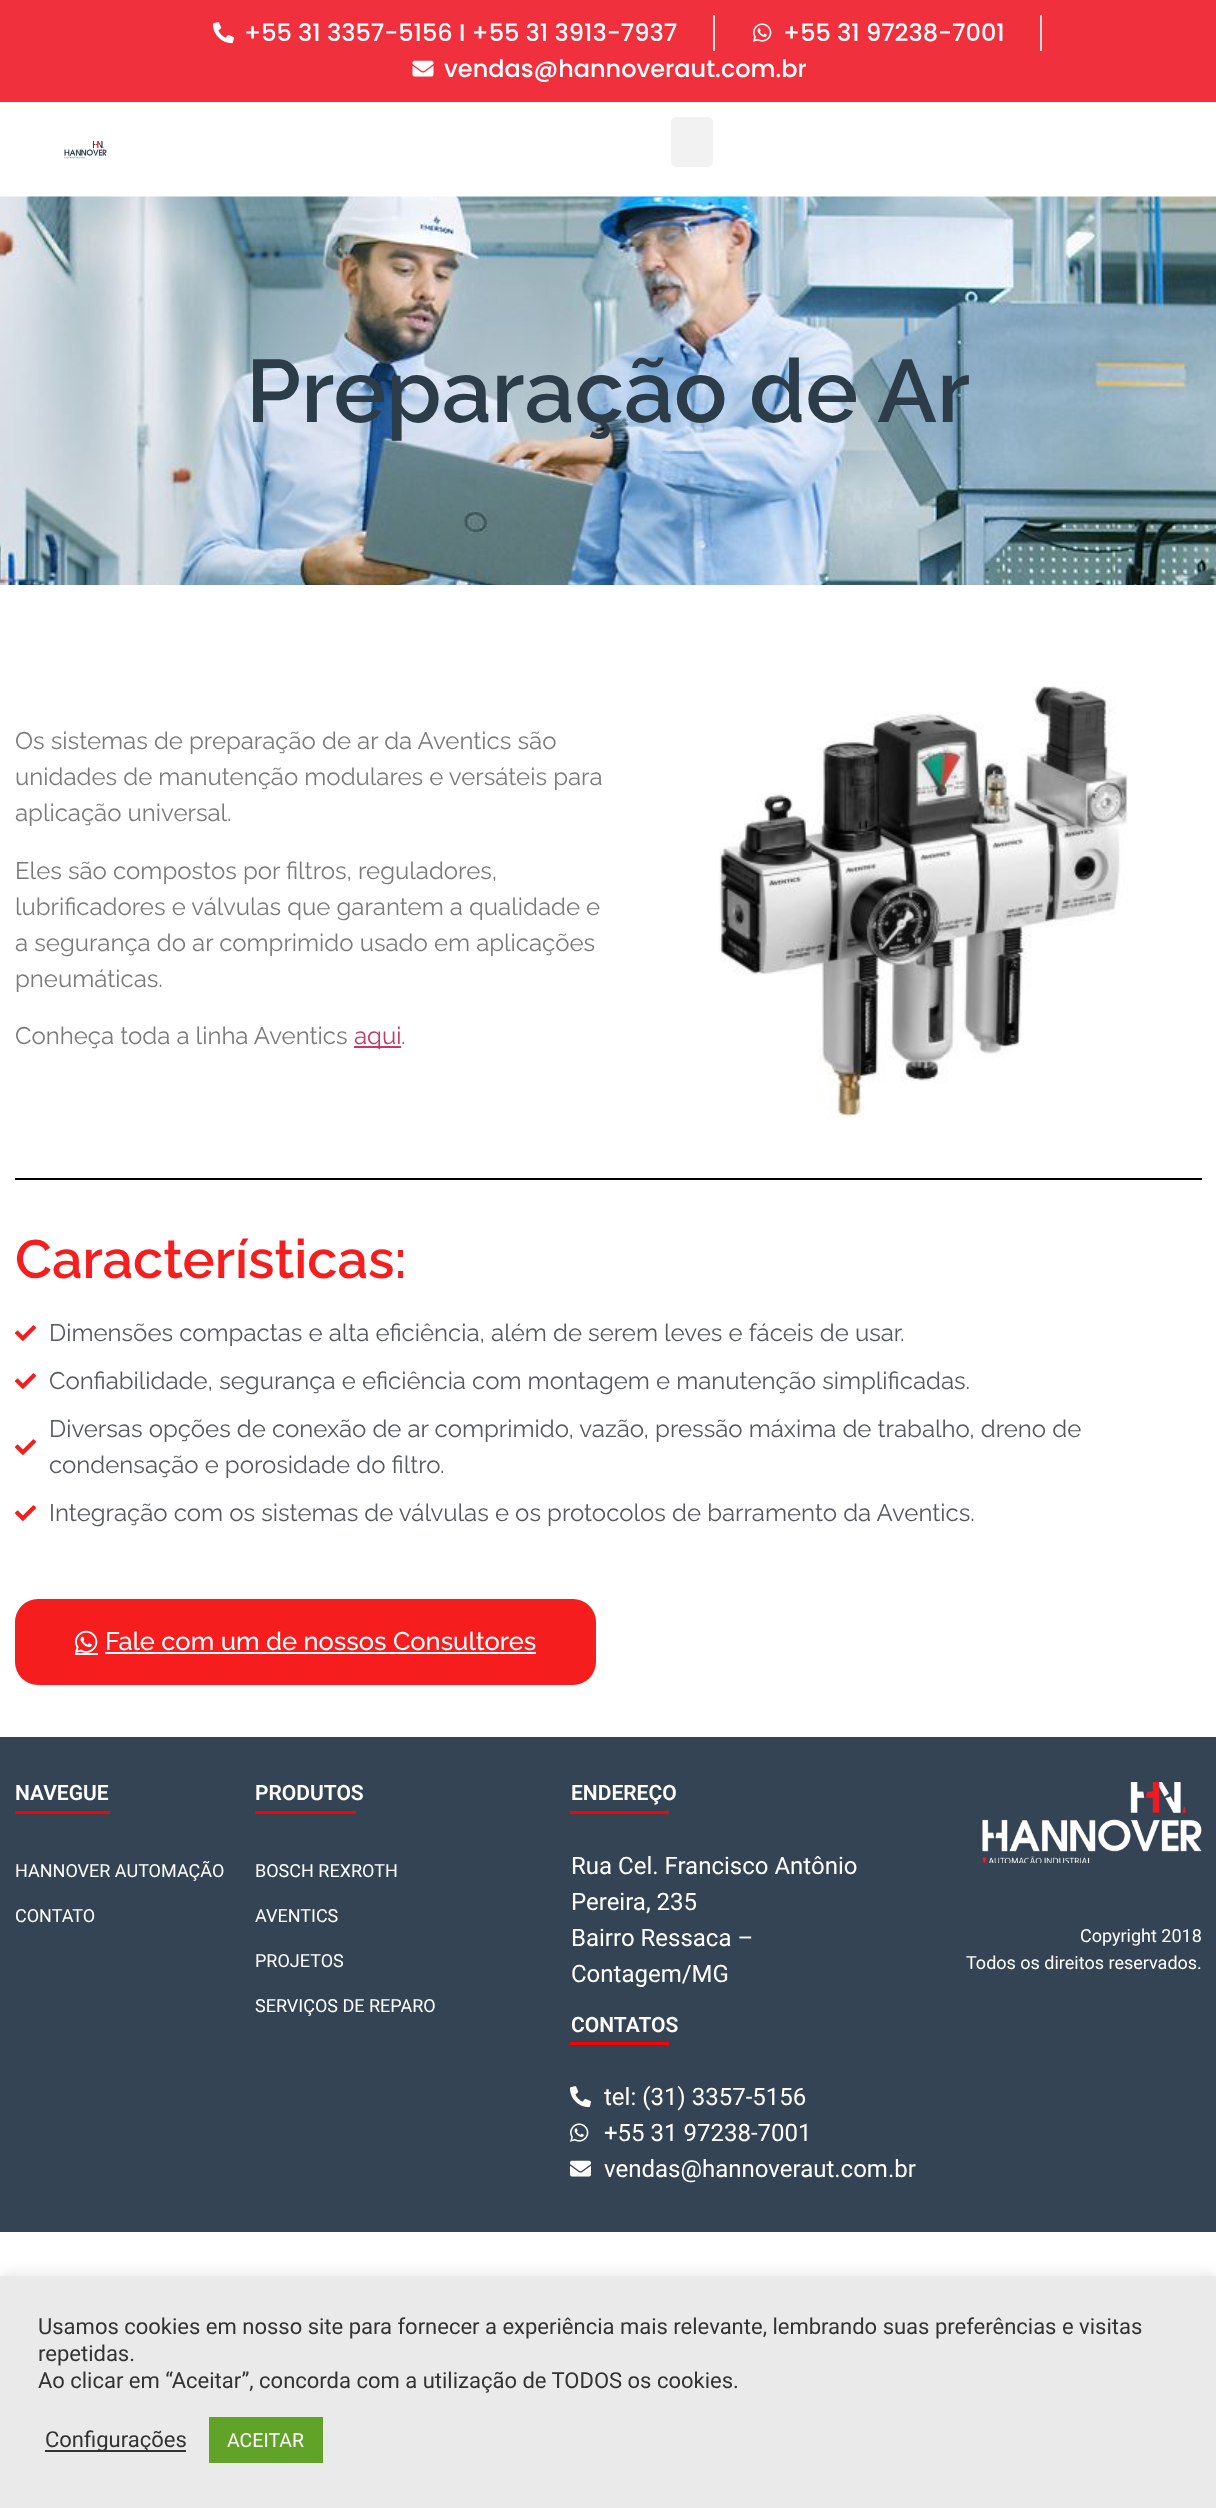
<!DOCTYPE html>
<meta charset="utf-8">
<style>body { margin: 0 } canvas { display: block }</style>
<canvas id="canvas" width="1216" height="2508"></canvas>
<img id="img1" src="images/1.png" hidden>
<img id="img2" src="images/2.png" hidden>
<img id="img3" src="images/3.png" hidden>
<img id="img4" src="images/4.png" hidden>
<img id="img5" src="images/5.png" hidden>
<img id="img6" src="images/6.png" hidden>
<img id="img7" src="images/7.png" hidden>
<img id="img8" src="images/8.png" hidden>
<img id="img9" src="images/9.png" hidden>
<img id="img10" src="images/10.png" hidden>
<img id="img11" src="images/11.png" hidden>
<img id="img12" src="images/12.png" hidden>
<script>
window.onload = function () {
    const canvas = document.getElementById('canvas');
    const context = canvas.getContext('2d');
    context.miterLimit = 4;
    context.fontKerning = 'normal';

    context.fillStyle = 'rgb(255, 255, 255)';
    context.fillRect(0, 0, 1216, 2508);
    context.fillStyle = 'rgb(240, 48, 60)';
    context.fillRect(0, 0, 1216, 102);
    context.drawImage(document.getElementById('img1'), 213, 22, 21, 22);
    context.fillStyle = 'rgb(221, 221, 221)';
    context.fillRect(713, 15, 2, 36);
    context.drawImage(document.getElementById('img2'), 753, 23, 19, 19);
    context.fillRect(1040, 15, 2, 36);
    context.drawImage(document.getElementById('img3'), 412, 60, 22, 17);
    context.drawImage(document.getElementById('img4'), 64, 141, 43, 18);
    context.fillStyle = 'rgb(242, 242, 242)';
    context.beginPath();
    context.roundRect(671, 117, 42, 50, 5);
    context.fill();
    context.drawImage(document.getElementById('img5'), 0, 196, 1216, 389);
    context.fillStyle = 'rgb(204, 51, 102)';
    context.fillRect(354, 1046, 47, 2);
    context.drawImage(document.getElementById('img6'), 719, 686, 409, 434);
    context.fillStyle = 'rgb(0, 0, 0)';
    context.fillRect(15, 1178, 1187, 2);
    context.drawImage(document.getElementById('img7'), 15, 1325, 21, 16);
    context.drawImage(document.getElementById('img7'), 15, 1373, 21, 16);
    context.drawImage(document.getElementById('img7'), 15, 1439, 21, 16);
    context.drawImage(document.getElementById('img7'), 15, 1505, 21, 16);
    context.fillStyle = 'rgb(245, 29, 29)';
    context.beginPath();
    context.roundRect(15, 1599, 581, 86, 23);
    context.fill();
    context.drawImage(document.getElementById('img8'), 75, 1630, 23, 23);
    context.fillStyle = 'rgb(255, 255, 255)';
    context.fillRect(75, 1653, 23, 2);
    context.fillRect(105, 1652, 431, 2);
    context.fillStyle = 'rgb(52, 68, 84)';
    context.fillRect(0, 1737, 1216, 495);
    context.fillStyle = 'rgb(255, 0, 0)';
    context.fillRect(15, 1811, 95, 3);
    context.fillRect(255, 1811, 101, 3);
    context.fillRect(570, 1811, 99, 3);
    context.fillRect(570, 2042, 99, 3);
    context.drawImage(document.getElementById('img9'), 570, 2086, 21, 22);
    context.drawImage(document.getElementById('img10'), 570, 2123, 19, 19);
    context.drawImage(document.getElementById('img11'), 570, 2160, 21, 17);
    context.drawImage(document.getElementById('img12'), 982, 1782, 220, 81);
    context.fillStyle = 'rgba(172, 171, 171, 0.3)';
    context.filter = 'blur(7.5px)';
    context.beginPath();
    context.rect(0, 2274, 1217, 233);
    context.fill();
    context.filter = 'none';
    context.fillStyle = 'rgb(234, 234, 234)';
    context.fillRect(0, 2276, 1216, 232);
    context.fillStyle = 'rgb(51, 51, 51)';
    context.fillRect(45, 2450, 141, 2);
    context.fillStyle = 'rgb(97, 162, 41)';
    context.fillRect(209, 2417, 114, 46);
    context.font = '500 24px Poppins';
    context.fillStyle = 'rgb(255, 255, 255)';
    context.fillText('+55 31 3357-5156 I +55 31 3913-7937', 244, 41);
    context.fillText('+55 31 97238-7001', 783, 41);
    context.fillText('vendas@hannoveraut.com.br', 444, 77);
    context.font = '600 88.5px Raleway';
    context.fillStyle = 'rgb(44, 60, 73)';
    context.fillText('Preparação de Ar', 246, 422);
    context.font = '24px Raleway';
    context.fillStyle = 'rgb(122, 122, 122)';
    context.fillText('Os sistemas de preparação de ar da Aventics são', 15, 749);
    context.fillText('unidades de manutenção modulares e versáteis para', 15, 785);
    context.fillText('aplicação universal.', 15, 821);
    context.fillText('Eles são compostos por filtros, reguladores,', 15, 879);
    context.fillText('lubrificadores e válvulas que garantem a qualidade e', 15, 915);
    context.fillText('a segurança do ar comprimido usado em aplicações', 15, 951);
    context.fillText('pneumáticas.', 15, 987);
    context.fillText('Conheça toda a linha Aventics', 15, 1044);
    context.fillStyle = 'rgb(204, 51, 102)';
    context.fillText('aqui', 354, 1044);
    context.fillStyle = 'rgb(122, 122, 122)';
    context.fillText('.', 401, 1044);
    context.font = '600 54px Raleway';
    context.fillStyle = 'rgb(245, 29, 29)';
    context.fillText('Características:', 15, 1278);
    context.font = '24px Raleway';
    context.fillStyle = 'rgb(84, 89, 95)';
    context.fillText('Dimensões compactas e alta eficiência, além de serem leves e fáceis de usar.', 49, 1341);
    context.fillText('Confiabilidade, segurança e eficiência com montagem e manutenção simplificadas.', 49, 1389);
    context.fillText('Diversas opções de conexão de ar comprimido, vazão, pressão máxima de trabalho, dreno de', 49, 1437);
    context.fillText('condensação e porosidade do filtro.', 49, 1473);
    context.fillText('Integração com os sistemas de válvulas e os protocolos de barramento da Aventics.', 49, 1521);
    context.font = '500 25.5px Raleway';
    context.fillStyle = 'rgb(255, 255, 255)';
    context.fillText('Fale com um de nossos Consultores', 105, 1650);
    context.font = '600 21px Roboto';
    context.fillText('NAVEGUE', 15, 1800);
    context.font = '18px Roboto';
    context.fillText('HANNOVER AUTOMAÇÃO', 15, 1877);
    context.fillText('CONTATO', 15, 1922);
    context.font = '600 21px Roboto';
    context.fillText('PRODUTOS', 255, 1800);
    context.font = '18px Roboto';
    context.fillText('BOSCH REXROTH', 255, 1877);
    context.fillText('AVENTICS', 255, 1922);
    context.fillText('PROJETOS', 255, 1967);
    context.fillText('SERVIÇOS DE REPARO', 255, 2012);
    context.font = '600 21px Roboto';
    context.fillText('ENDEREÇO', 571, 1800);
    context.font = '24px Roboto';
    context.fillText('Rua Cel. Francisco Antônio', 571, 1874);
    context.fillText('Pereira, 235', 571, 1910);
    context.fillText('Bairro Ressaca –', 571, 1946);
    context.fillText('Contagem/MG', 571, 1982);
    context.font = '600 21px Roboto';
    context.fillText('CONTATOS', 571, 2032);
    context.font = '24px Roboto';
    context.fillText('tel: (31) 3357-5156', 604, 2105);
    context.fillText('+55 31 97238-7001', 604, 2141);
    context.fillText('vendas@hannoveraut.com.br', 604, 2177);
    context.font = '18px Roboto';
    context.fillText('Copyright 2018', 1080, 1942);
    context.fillText('Todos os direitos reservados.', 966, 1969);
    context.font = '22px Roboto';
    context.fillStyle = 'rgb(51, 51, 51)';
    context.fillText('Usamos cookies em nosso site para fornecer a experiência mais relevante, lembrando suas preferências e visitas', 38, 2334);
    context.fillText('repetidas.', 38, 2361);
    context.fillText('Ao clicar em “Aceitar”, concorda com a utilização de TODOS os cookies.', 38, 2388);
    context.fillText('Configurações', 45, 2447);
    context.font = '19.5px Roboto';
    context.fillStyle = 'rgb(255, 255, 255)';
    context.fillText('ACEITAR', 227, 2447);
};
</script>
